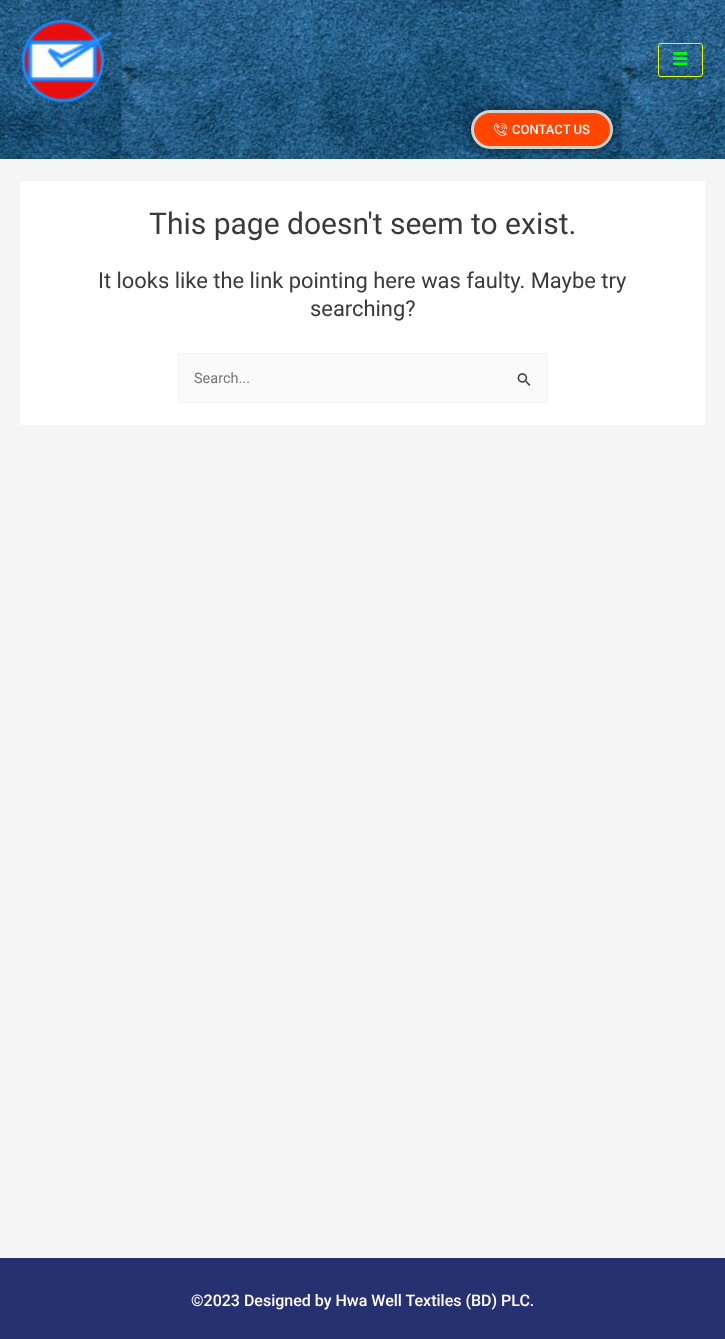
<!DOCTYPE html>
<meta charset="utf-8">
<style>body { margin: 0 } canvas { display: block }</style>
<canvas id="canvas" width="725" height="1339"></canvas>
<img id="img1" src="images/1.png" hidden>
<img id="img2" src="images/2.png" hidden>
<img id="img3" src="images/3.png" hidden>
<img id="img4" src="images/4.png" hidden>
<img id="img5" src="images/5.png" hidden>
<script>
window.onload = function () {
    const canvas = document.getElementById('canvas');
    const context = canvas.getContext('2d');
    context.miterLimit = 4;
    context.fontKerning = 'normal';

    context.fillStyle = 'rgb(245, 245, 245)';
    context.fillRect(0, 0, 725, 1339);
    context.drawImage(document.getElementById('img1'), 0, 0, 725, 159);
    context.drawImage(document.getElementById('img2'), 20, 18, 93, 85);
    context.beginPath();
    context.roundRect(658.5, 43.5, 44, 33, 2.5);
    context.strokeStyle = 'rgb(234, 248, 0)';
    context.stroke();
    context.drawImage(document.getElementById('img3'), 673, 52, 15, 14);
    context.fillStyle = 'rgba(0, 0, 0, 0.5)';
    context.filter = 'blur(5px)';
    context.beginPath();
    context.roundRect(471, 110, 142, 39, 19.5);
    context.fill();
    context.filter = 'none';
    context.fillStyle = 'rgb(255, 69, 0)';
    context.beginPath();
    context.roundRect(472.5, 111.5, 139, 36, 18);
    context.fill();
    context.strokeStyle = 'rgb(211, 211, 211)';
    context.lineWidth = 3;
    context.stroke();
    context.drawImage(document.getElementById('img4'), 494, 123, 13, 13);
    context.fillStyle = 'rgb(255, 255, 255)';
    context.fillRect(20, 181, 685, 244);
    context.fillStyle = 'rgb(250, 250, 250)';
    context.beginPath();
    context.roundRect(178.5, 353.5, 369, 49, 1.5);
    context.fill();
    context.strokeStyle = 'rgb(242, 245, 247)';
    context.lineWidth = 1;
    context.stroke();
    context.drawImage(document.getElementById('img5'), 517, 373, 14, 13);
    context.fillStyle = 'rgb(39, 49, 113)';
    context.fillRect(0, 1258, 725, 81);
    context.font = '500 13px Roboto';
    context.fillStyle = 'rgb(255, 255, 255)';
    context.fillText('CONTACT US', 512, 134);
    context.font = '30px Roboto';
    context.fillStyle = 'rgb(58, 58, 58)';
    context.fillText('This page doesn\'t seem to exist.', 149, 234);
    context.font = '21.9px Roboto';
    context.fillText('It looks like the link pointing here was faulty. Maybe try', 98, 288);
    context.fillText('searching?', 310, 316);
    context.font = '14.5px Roboto';
    context.fillStyle = 'rgb(117, 117, 117)';
    context.fillText('Search...', 194, 383);
    context.font = '500 16px Roboto';
    context.fillStyle = 'rgb(255, 255, 255)';
    context.fillText('©2023 Designed by Hwa Well Textiles (BD) PLC.', 191, 1306);
};
</script>
